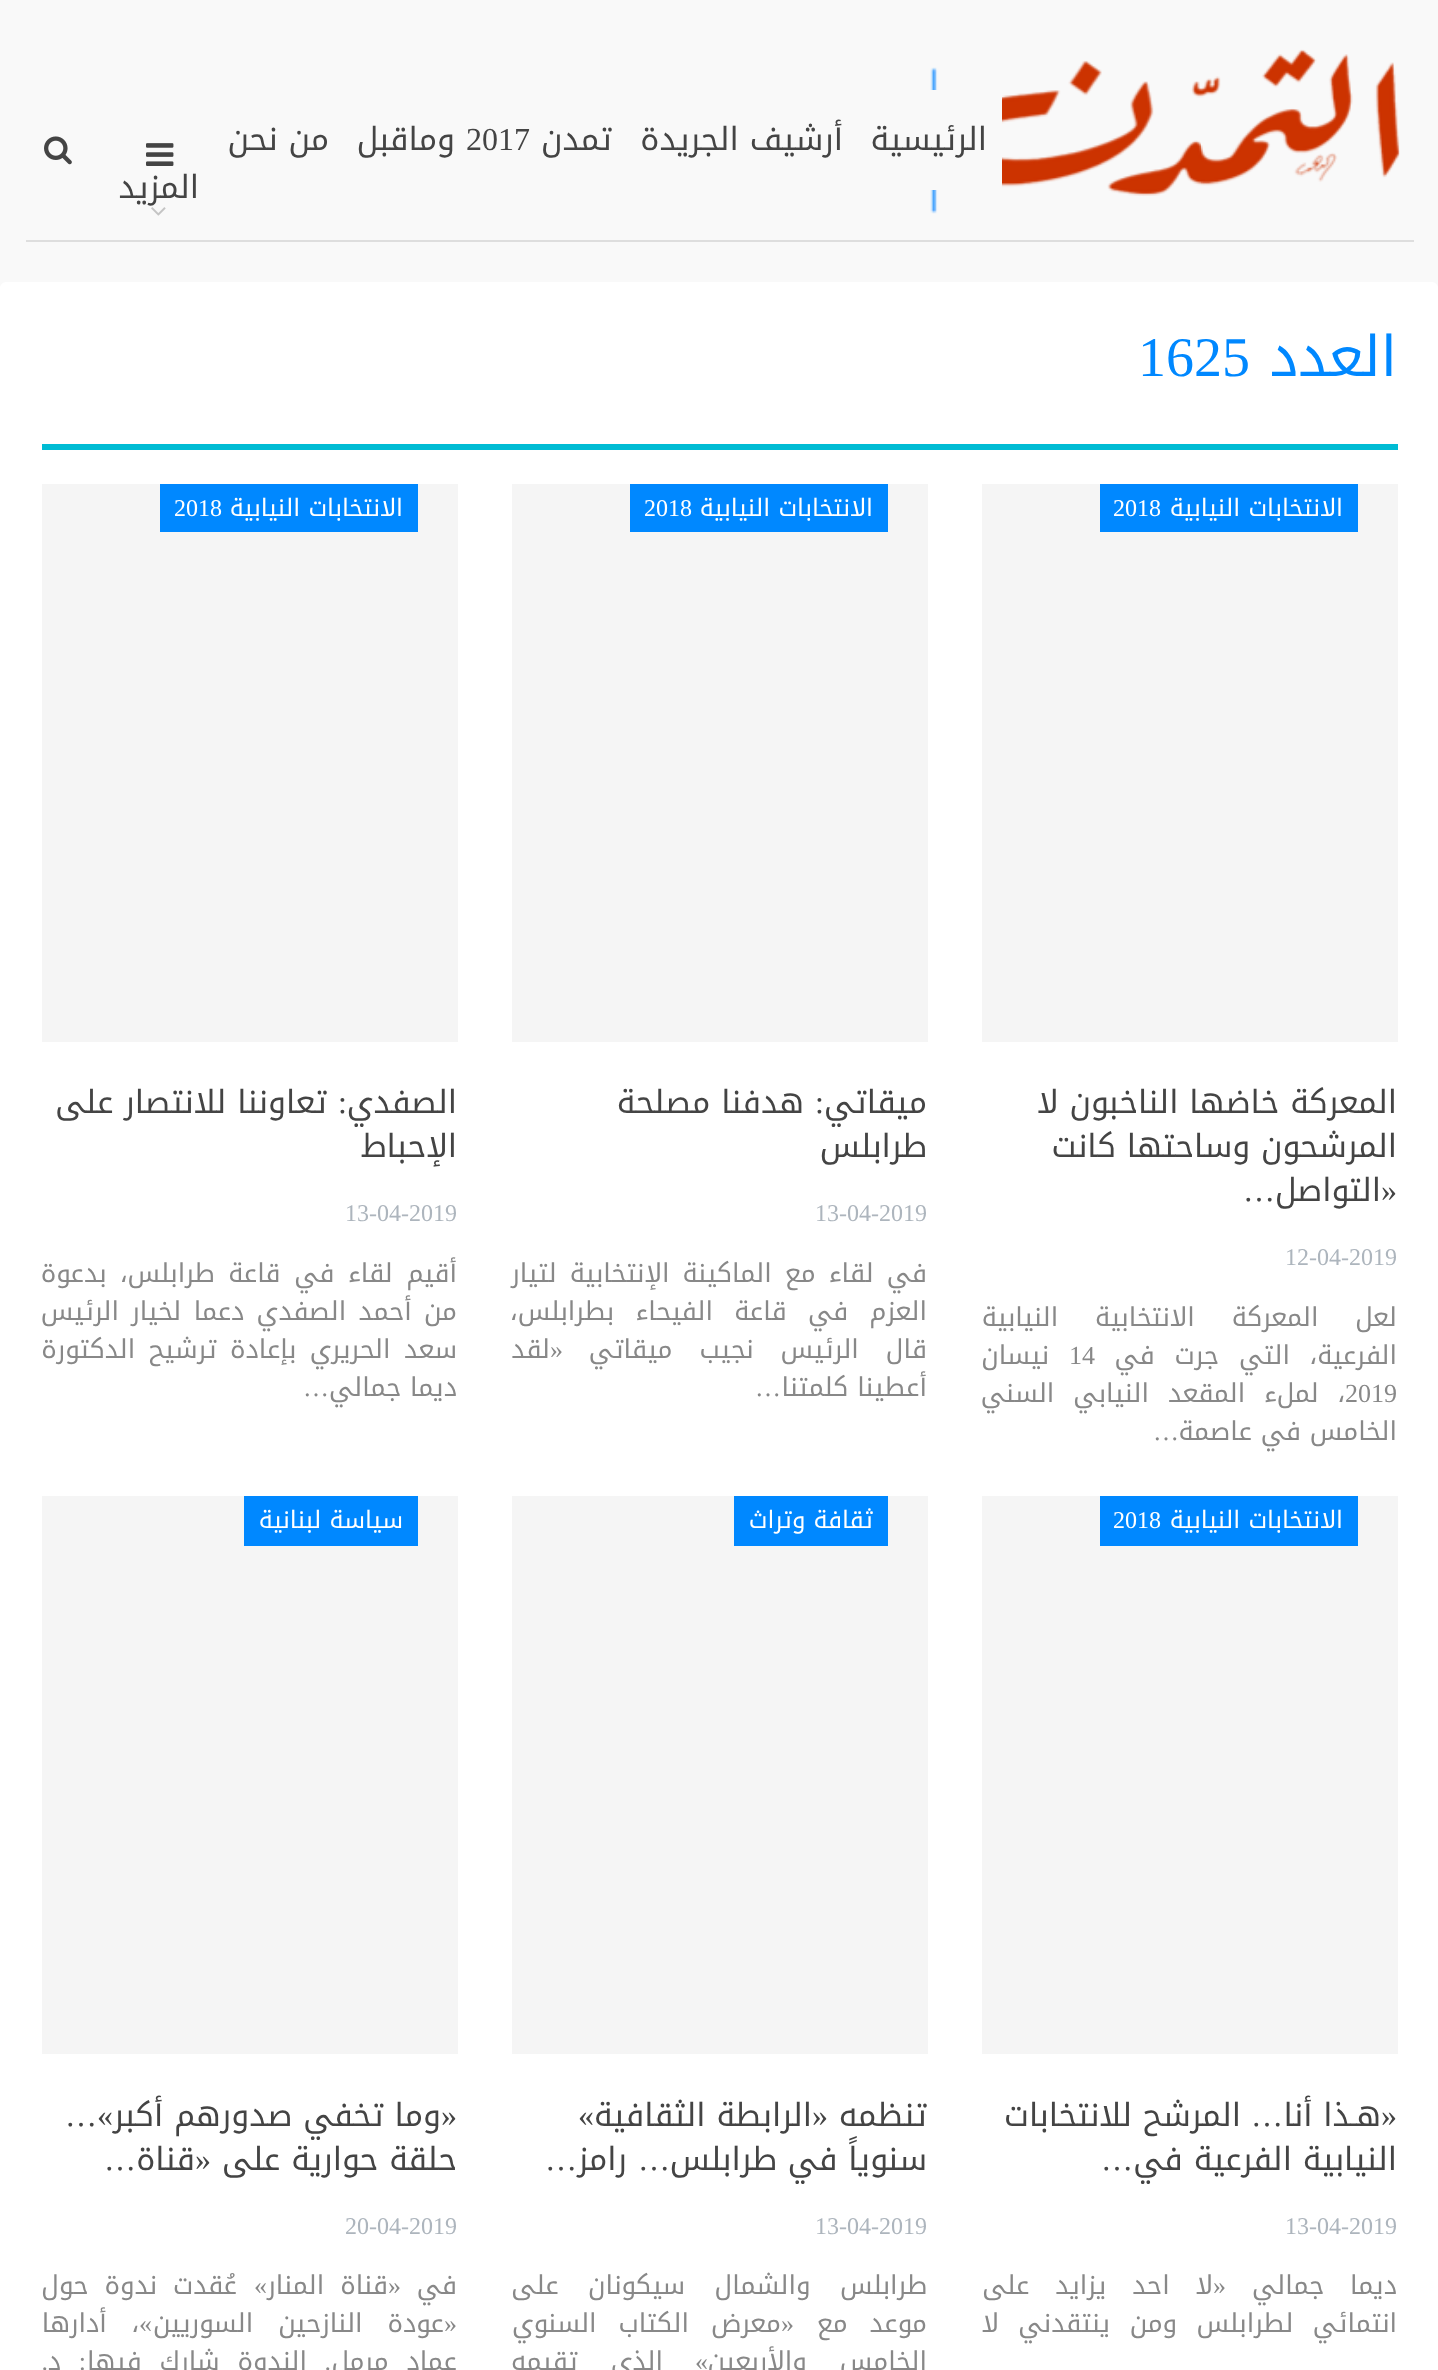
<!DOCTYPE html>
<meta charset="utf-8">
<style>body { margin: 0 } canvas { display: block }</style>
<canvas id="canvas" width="1438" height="2370"></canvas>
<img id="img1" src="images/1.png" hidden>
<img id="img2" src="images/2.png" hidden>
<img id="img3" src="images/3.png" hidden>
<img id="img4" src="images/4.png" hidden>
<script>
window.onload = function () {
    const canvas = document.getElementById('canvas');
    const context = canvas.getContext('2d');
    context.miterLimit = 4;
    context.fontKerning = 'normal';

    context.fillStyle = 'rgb(249, 249, 249)';
    context.fillRect(0, 0, 1438, 2370);
    context.fillStyle = 'rgb(222, 222, 222)';
    context.fillRect(26, 240, 1388, 2);
    context.drawImage(document.getElementById('img1'), 930, 49, 470, 165);
    context.fillStyle = 'rgb(249, 249, 249)';
    context.fillRect(930, 90, 72, 100);
    context.drawImage(document.getElementById('img2'), 146, 143, 28, 23);
    context.drawImage(document.getElementById('img3'), 151, 207, 15, 9);
    context.drawImage(document.getElementById('img4'), 44, 136, 28, 29);
    context.fillStyle = 'rgb(255, 255, 255)';
    context.beginPath();
    context.roundRect(0, 282, 1438, 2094, 6);
    context.fill();
    context.fillStyle = 'rgb(0, 188, 212)';
    context.fillRect(42, 444, 1356, 6);
    context.fillStyle = 'rgb(245, 245, 245)';
    context.fillRect(982, 484, 416, 558);
    context.fillStyle = 'rgb(0, 136, 255)';
    context.fillRect(1100, 484, 258, 48);
    context.fillStyle = 'rgb(245, 245, 245)';
    context.fillRect(512, 484, 416, 558);
    context.fillStyle = 'rgb(0, 136, 255)';
    context.fillRect(630, 484, 258, 48);
    context.fillStyle = 'rgb(245, 245, 245)';
    context.fillRect(42, 484, 416, 558);
    context.fillStyle = 'rgb(0, 136, 255)';
    context.fillRect(160, 484, 258, 48);
    context.fillStyle = 'rgb(245, 245, 245)';
    context.fillRect(982, 1496, 416, 558);
    context.fillStyle = 'rgb(0, 136, 255)';
    context.fillRect(1100, 1496, 258, 50);
    context.fillStyle = 'rgb(245, 245, 245)';
    context.fillRect(512, 1496, 416, 558);
    context.fillStyle = 'rgb(0, 136, 255)';
    context.fillRect(734, 1496, 154, 50);
    context.fillStyle = 'rgb(245, 245, 245)';
    context.fillRect(42, 1496, 416, 558);
    context.fillStyle = 'rgb(0, 136, 255)';
    context.fillRect(244, 1496, 174, 50);
    context.direction = 'rtl';
    context.font = '32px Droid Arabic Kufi';
    context.fillStyle = 'rgb(68, 68, 68)';
    context.fillText('الرئيسية', 987, 150);
    context.fillText('أرشيف الجريدة', 843, 150);
    context.fillText('تمدن', 612, 150);
    context.direction = 'ltr';
    context.font = '32px Liberation Serif';
    context.fillText('2017', 466, 150);
    context.direction = 'rtl';
    context.font = '32px Droid Arabic Kufi';
    context.fillText('وماقبل', 455, 150);
    context.fillText('من نحن', 329, 150);
    context.fillText('المزيد', 199, 198);
    context.font = '56px Droid Arabic Kufi';
    context.fillStyle = 'rgb(0, 136, 255)';
    context.fillText('العدد', 1397, 376);
    context.direction = 'ltr';
    context.font = '56px Liberation Serif';
    context.fillText('1625', 1138, 376);
    context.direction = 'rtl';
    context.font = '24px Droid Arabic Kufi';
    context.fillStyle = 'rgb(255, 255, 255)';
    context.fillText('الانتخابات النيابية', 1343, 516);
    context.direction = 'ltr';
    context.font = '24px Liberation Serif';
    context.fillText('2018', 1113, 516);
    context.direction = 'rtl';
    context.font = '32px Droid Arabic Kufi';
    context.fillStyle = 'rgb(68, 68, 68)';
    context.fillText('المعركة خاضها الناخبون لا', 1397, 1113);
    context.fillText('المرشحون وساحتها كانت', 1397, 1157);
    context.font = '32px Liberation Serif';
    context.fillText('«', 1397, 1201);
    context.font = '32px Droid Arabic Kufi';
    context.fillText('التواصل', 1381, 1201);
    context.font = '32px Liberation Serif';
    context.fillText('…', 1275, 1201);
    context.direction = 'ltr';
    context.font = '24px Liberation Serif';
    context.fillStyle = 'rgb(173, 181, 189)';
    context.fillText('12-04-2019', 1285, 1265);
    context.wordSpacing = '28px';
    context.direction = 'rtl';
    context.font = '26px Droid Arabic Kufi';
    context.fillStyle = 'rgb(136, 136, 136)';
    context.fillText('لعل المعركة الانتخابية النيابية', 1397, 1326);
    context.wordSpacing = '11px';
    context.fillText('الفرعية، التي جرت في', 1397, 1364);
    context.wordSpacing = '0px';
    context.direction = 'ltr';
    context.font = '26px Liberation Serif';
    context.fillText('14', 1069, 1364);
    context.direction = 'rtl';
    context.font = '26px Droid Arabic Kufi';
    context.fillText('نيسان', 1049, 1364);
    context.direction = 'ltr';
    context.font = '26px Liberation Serif';
    context.fillText('2019', 1345, 1402);
    context.wordSpacing = '10px';
    context.direction = 'rtl';
    context.font = '26px Droid Arabic Kufi';
    context.fillText('، لملء المقعد النيابي السني', 1345, 1402);
    context.wordSpacing = '0px';
    context.fillText('الخامس في عاصمة', 1397, 1440);
    context.font = '26px Liberation Serif';
    context.fillText('…', 1179, 1440);
    context.font = '24px Droid Arabic Kufi';
    context.fillStyle = 'rgb(255, 255, 255)';
    context.fillText('الانتخابات النيابية', 873, 516);
    context.direction = 'ltr';
    context.font = '24px Liberation Serif';
    context.fillText('2018', 644, 516);
    context.direction = 'rtl';
    context.font = '32px Droid Arabic Kufi';
    context.fillStyle = 'rgb(68, 68, 68)';
    context.fillText('ميقاتي', 927, 1113);
    context.font = '32px Liberation Serif';
    context.fillText(':', 824, 1113);
    context.font = '32px Droid Arabic Kufi';
    context.fillText('هدفنا مصلحة', 804, 1113);
    context.fillText('طرابلس', 927, 1157);
    context.direction = 'ltr';
    context.font = '24px Liberation Serif';
    context.fillStyle = 'rgb(173, 181, 189)';
    context.fillText('13-04-2019', 815, 1221);
    context.wordSpacing = '4.25px';
    context.direction = 'rtl';
    context.font = '26px Droid Arabic Kufi';
    context.fillStyle = 'rgb(136, 136, 136)';
    context.fillText('في لقاء مع الماكينة الإنتخابية لتيار', 927, 1282);
    context.wordSpacing = '12.5px';
    context.fillText('العزم في قاعة الفيحاء بطرابلس،', 927, 1320);
    context.wordSpacing = '18px';
    context.fillText('قال الرئيس نجيب ميقاتي', 927, 1358);
    context.wordSpacing = '0px';
    context.font = '26px Liberation Serif';
    context.fillText('«', 563, 1358);
    context.font = '26px Droid Arabic Kufi';
    context.fillText('لقد', 550, 1358);
    context.fillText('أعطينا كلمتنا', 927, 1396);
    context.font = '26px Liberation Serif';
    context.fillText('…', 781, 1396);
    context.font = '24px Droid Arabic Kufi';
    context.fillStyle = 'rgb(255, 255, 255)';
    context.fillText('الانتخابات النيابية', 403, 516);
    context.direction = 'ltr';
    context.font = '24px Liberation Serif';
    context.fillText('2018', 174, 516);
    context.direction = 'rtl';
    context.font = '32px Droid Arabic Kufi';
    context.fillStyle = 'rgb(68, 68, 68)';
    context.fillText('الصفدي', 457, 1113);
    context.font = '32px Liberation Serif';
    context.fillText(':', 347, 1113);
    context.font = '32px Droid Arabic Kufi';
    context.fillText('تعاوننا للانتصار على', 327, 1113);
    context.fillText('الإحباط', 457, 1157);
    context.direction = 'ltr';
    context.font = '24px Liberation Serif';
    context.fillStyle = 'rgb(173, 181, 189)';
    context.fillText('13-04-2019', 345, 1221);
    context.wordSpacing = '4.75px';
    context.direction = 'rtl';
    context.font = '26px Droid Arabic Kufi';
    context.fillStyle = 'rgb(136, 136, 136)';
    context.fillText('أقيم لقاء في قاعة طرابلس، بدعوة', 457, 1282);
    context.wordSpacing = '3.5px';
    context.fillText('من أحمد الصفدي دعما لخيار الرئيس', 457, 1320);
    context.wordSpacing = '4.5px';
    context.fillText('سعد الحريري بإعادة ترشيح الدكتورة', 457, 1358);
    context.wordSpacing = '0px';
    context.fillText('ديما جمالي', 457, 1396);
    context.font = '26px Liberation Serif';
    context.fillText('…', 329, 1396);
    context.font = '24px Droid Arabic Kufi';
    context.fillStyle = 'rgb(255, 255, 255)';
    context.fillText('الانتخابات النيابية', 1343, 1528);
    context.direction = 'ltr';
    context.font = '24px Liberation Serif';
    context.fillText('2018', 1113, 1528);
    context.direction = 'rtl';
    context.font = '32px Liberation Serif';
    context.fillStyle = 'rgb(68, 68, 68)';
    context.fillText('«', 1397, 2126);
    context.font = '32px Droid Arabic Kufi';
    context.fillText('هـذا أنا', 1381, 2126);
    context.font = '32px Liberation Serif';
    context.fillText('…', 1283, 2126);
    context.font = '32px Droid Arabic Kufi';
    context.fillText('المرشح للانتخابات', 1241, 2126);
    context.fillText('النيابية الفرعية في', 1397, 2170);
    context.font = '32px Liberation Serif';
    context.fillText('…', 1133, 2170);
    context.direction = 'ltr';
    context.font = '24px Liberation Serif';
    context.fillStyle = 'rgb(173, 181, 189)';
    context.fillText('13-04-2019', 1285, 2234);
    context.wordSpacing = '17px';
    context.direction = 'rtl';
    context.font = '26px Droid Arabic Kufi';
    context.fillStyle = 'rgb(136, 136, 136)';
    context.fillText('ديما جمالي', 1397, 2294);
    context.wordSpacing = '0px';
    context.font = '26px Liberation Serif';
    context.fillText('«', 1226, 2294);
    context.wordSpacing = '17px';
    context.font = '26px Droid Arabic Kufi';
    context.fillText('لا احد يزايد على', 1213, 2294);
    context.wordSpacing = '10.5px';
    context.fillText('انتمائي لطرابلس ومن ينتقدني لا', 1397, 2332);
    context.wordSpacing = '0px';
    context.font = '24px Droid Arabic Kufi';
    context.fillStyle = 'rgb(255, 255, 255)';
    context.fillText('ثقافة وتراث', 873, 1528);
    context.font = '32px Droid Arabic Kufi';
    context.fillStyle = 'rgb(68, 68, 68)';
    context.fillText('تنظمه', 927, 2126);
    context.font = '32px Liberation Serif';
    context.fillText('«', 828, 2126);
    context.font = '32px Droid Arabic Kufi';
    context.fillText('الرابطة الثقافية', 812, 2126);
    context.font = '32px Liberation Serif';
    context.fillText('»', 594, 2126);
    context.font = '32px Droid Arabic Kufi';
    context.fillText('سنوياً في طرابلس', 927, 2170);
    context.font = '32px Liberation Serif';
    context.fillText('…', 670, 2170);
    context.font = '32px Droid Arabic Kufi';
    context.fillText('رامز', 627, 2170);
    context.font = '32px Liberation Serif';
    context.fillText('…', 577, 2170);
    context.direction = 'ltr';
    context.font = '24px Liberation Serif';
    context.fillStyle = 'rgb(173, 181, 189)';
    context.fillText('13-04-2019', 815, 2234);
    context.wordSpacing = '20.5px';
    context.direction = 'rtl';
    context.font = '26px Droid Arabic Kufi';
    context.fillStyle = 'rgb(136, 136, 136)';
    context.fillText('طرابلس والشمال سيكونان على', 927, 2294);
    context.wordSpacing = '13px';
    context.fillText('موعد مع', 927, 2332);
    context.wordSpacing = '0px';
    context.font = '26px Liberation Serif';
    context.fillText('«', 794, 2332);
    context.wordSpacing = '13px';
    context.font = '26px Droid Arabic Kufi';
    context.fillText('معرض الكتاب السنوي', 781, 2332);
    context.wordSpacing = '24px';
    context.fillText('الخامس والأربعين', 927, 2370);
    context.wordSpacing = '0px';
    context.font = '26px Liberation Serif';
    context.fillText('»', 708, 2370);
    context.wordSpacing = '24px';
    context.font = '26px Droid Arabic Kufi';
    context.fillText('الذي تقيمه', 663, 2370);
    context.wordSpacing = '0px';
    context.font = '24px Droid Arabic Kufi';
    context.fillStyle = 'rgb(255, 255, 255)';
    context.fillText('سياسة لبنانية', 403, 1528);
    context.font = '32px Liberation Serif';
    context.fillStyle = 'rgb(68, 68, 68)';
    context.fillText('«', 457, 2126);
    context.font = '32px Droid Arabic Kufi';
    context.fillText('وما تخفي صدورهم أكبر', 441, 2126);
    context.font = '32px Liberation Serif';
    context.fillText('»…', 113, 2126);
    context.font = '32px Droid Arabic Kufi';
    context.fillText('حلقة حوارية على', 457, 2170);
    context.font = '32px Liberation Serif';
    context.fillText('«', 211, 2170);
    context.font = '32px Droid Arabic Kufi';
    context.fillText('قناة', 195, 2170);
    context.font = '32px Liberation Serif';
    context.fillText('…', 136, 2170);
    context.direction = 'ltr';
    context.font = '24px Liberation Serif';
    context.fillStyle = 'rgb(173, 181, 189)';
    context.fillText('20-04-2019', 345, 2234);
    context.direction = 'rtl';
    context.font = '26px Droid Arabic Kufi';
    context.fillStyle = 'rgb(136, 136, 136)';
    context.fillText('في', 457, 2294);
    context.font = '26px Liberation Serif';
    context.fillText('«', 401, 2294);
    context.fillText('»', 267, 2294);
    context.wordSpacing = '7px';
    context.font = '26px Droid Arabic Kufi';
    context.fillText('قناة المنار', 388, 2294);
    context.fillText('عُقدت ندوة حول', 237, 2294);
    context.wordSpacing = '0px';
    context.font = '26px Liberation Serif';
    context.fillText('«', 457, 2332);
    context.wordSpacing = '16px';
    context.font = '26px Droid Arabic Kufi';
    context.fillText('عودة النازحين السوريين', 444, 2332);
    context.wordSpacing = '0px';
    context.font = '26px Liberation Serif';
    context.fillText('»', 152, 2332);
    context.wordSpacing = '16px';
    context.font = '26px Droid Arabic Kufi';
    context.fillText('، أدارها', 139, 2332);
    context.wordSpacing = '9px';
    context.fillText('عماد مرمل', 457, 2370);
    context.wordSpacing = '0px';
    context.font = '26px Liberation Serif';
    context.fillText('.', 331, 2370);
    context.wordSpacing = '9px';
    context.font = '26px Droid Arabic Kufi';
    context.fillText('الندوة شارك فيها', 307, 2370);
    context.wordSpacing = '0px';
    context.font = '26px Liberation Serif';
    context.fillText(':', 86, 2370);
    context.font = '26px Droid Arabic Kufi';
    context.fillText('د', 61, 2370);
    context.font = '26px Liberation Serif';
    context.fillText('.', 48, 2370);
};
</script>
